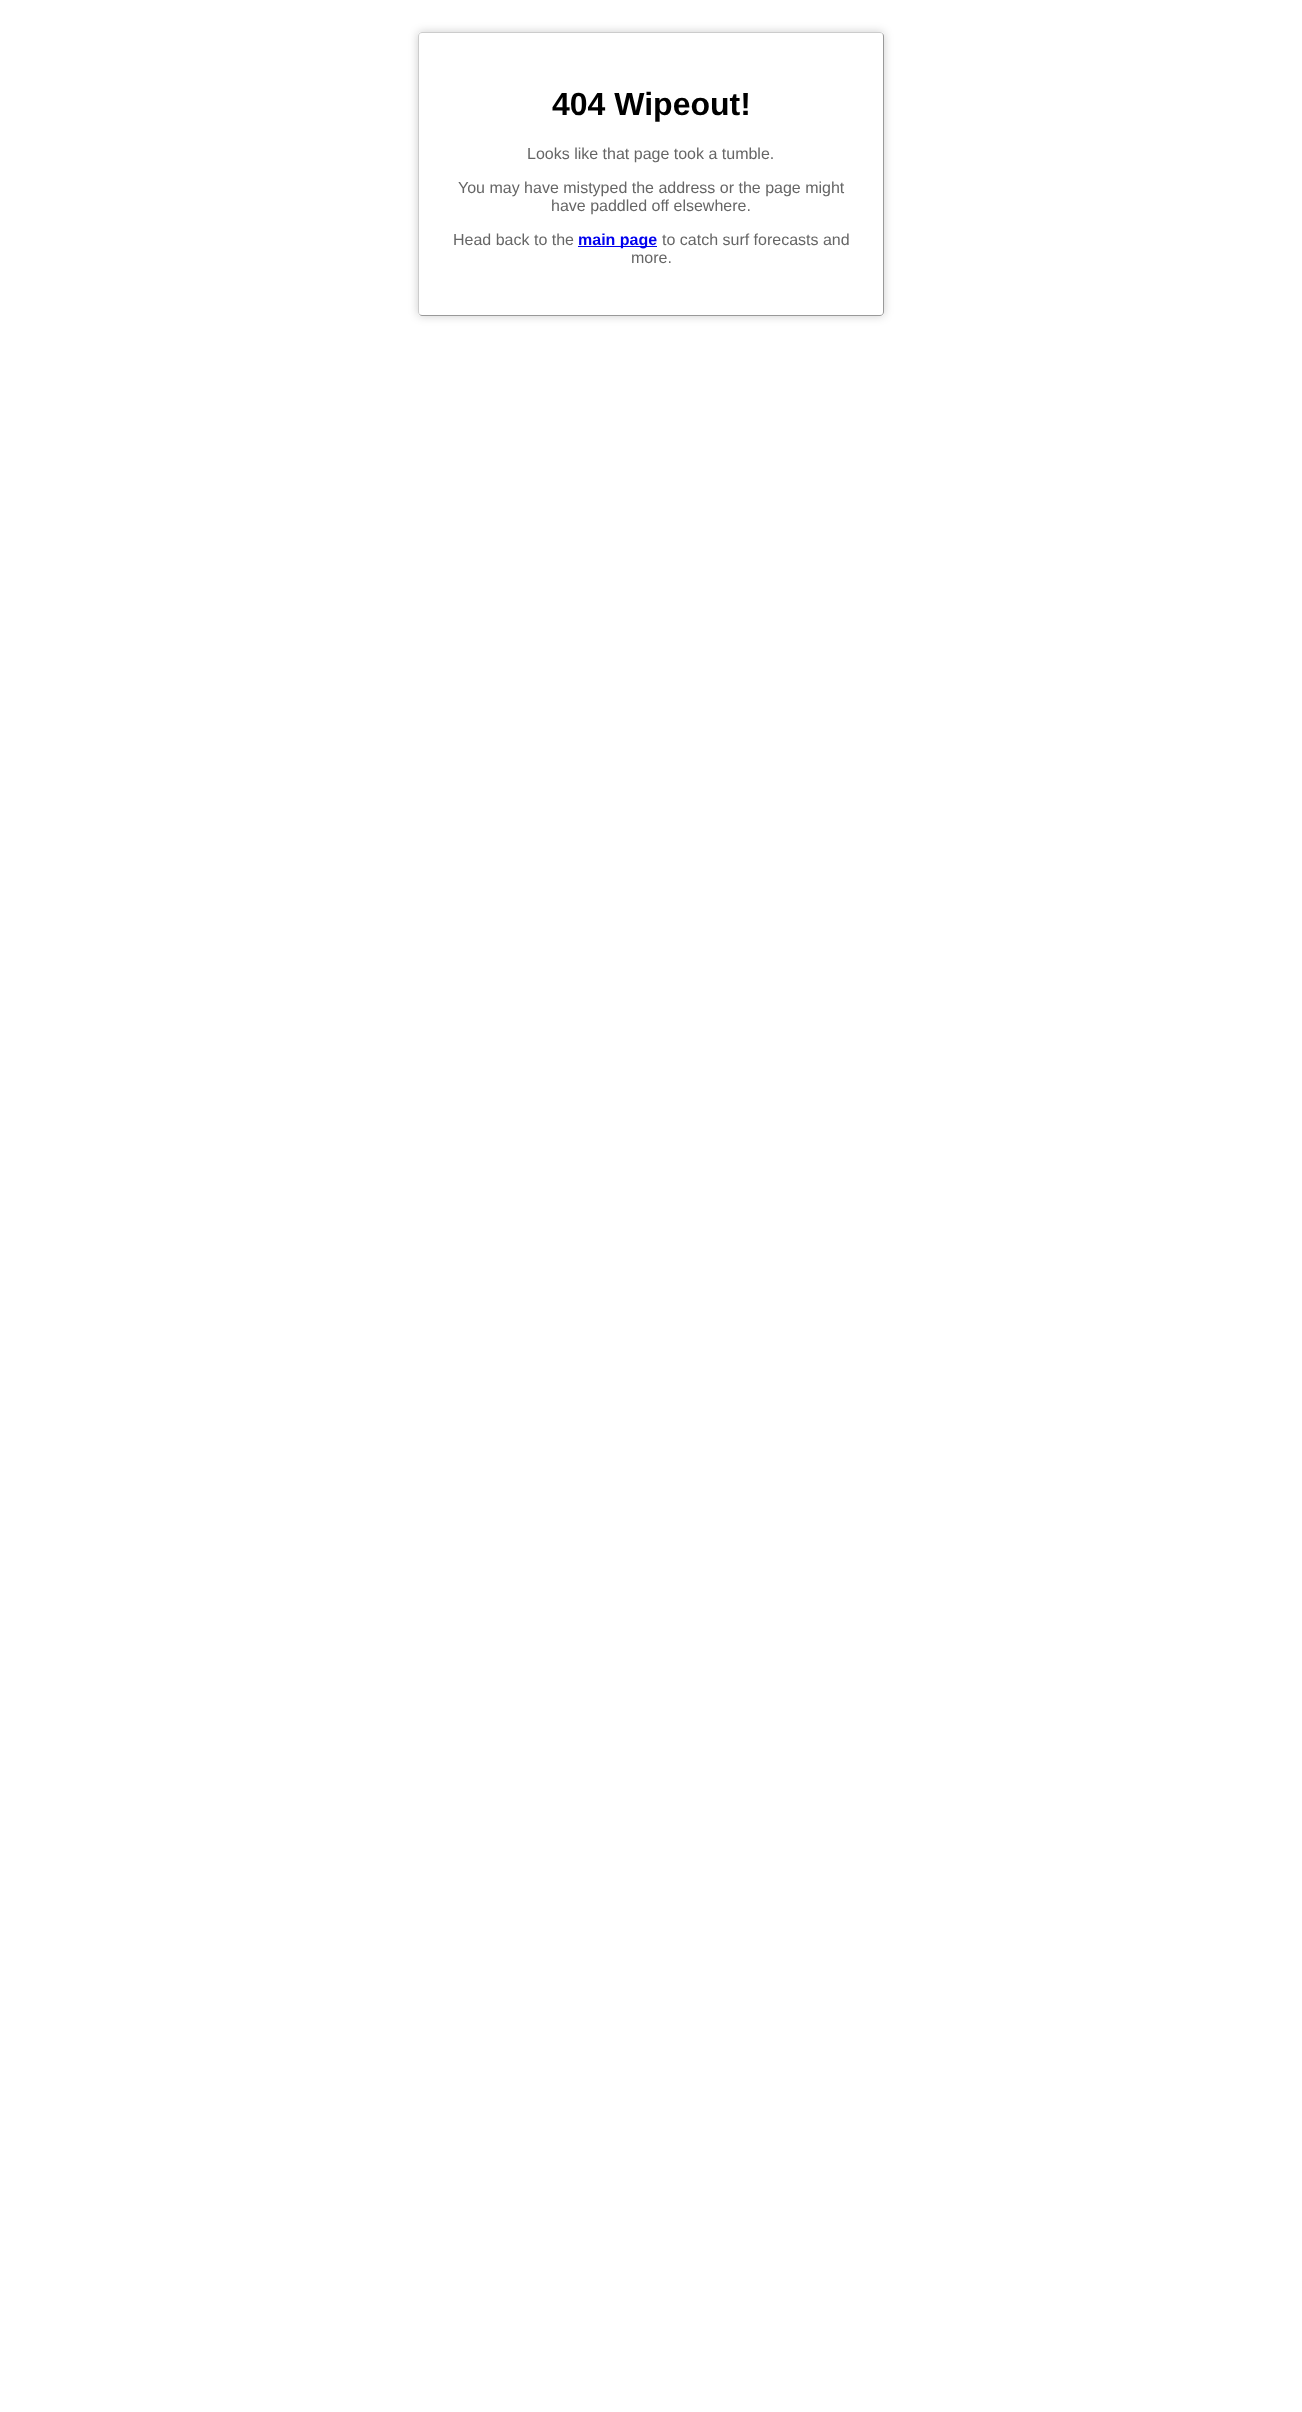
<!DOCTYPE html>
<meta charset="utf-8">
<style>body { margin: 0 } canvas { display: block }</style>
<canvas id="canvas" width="1302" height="2412"></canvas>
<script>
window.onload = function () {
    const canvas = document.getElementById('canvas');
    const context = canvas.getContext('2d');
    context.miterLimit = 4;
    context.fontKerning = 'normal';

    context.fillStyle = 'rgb(255, 255, 255)';
    context.fillRect(0, 0, 1302, 2412);
    context.fillStyle = 'rgba(0, 0, 0, 0.2)';
    context.filter = 'blur(5px)';
    context.beginPath();
    context.roundRect(418, 32, 466, 284, 4);
    context.fill();
    context.filter = 'none';
    context.fillStyle = 'rgb(255, 255, 255)';
    context.beginPath();
    context.roundRect(418, 32, 466, 284, 4);
    context.fill();
    context.beginPath();
    context.moveTo(882.5, 33.5);
    context.bezierCurveTo(883, 34, 883.5, 35, 883.5, 36);
    context.lineTo(883.5, 312);
    context.bezierCurveTo(883.5, 313, 883, 314, 882.5, 314.5);
    context.bezierCurveTo(882, 315, 881, 315.5, 880, 315.5);
    context.lineTo(422, 315.5);
    context.bezierCurveTo(421, 315.5, 420, 315, 419.5, 314.5);
    context.strokeStyle = 'rgb(153, 153, 153)';
    context.stroke();
    context.beginPath();
    context.moveTo(419.5, 314.5);
    context.bezierCurveTo(419, 314, 418.5, 313, 418.5, 312);
    context.lineTo(418.5, 36);
    context.bezierCurveTo(418.5, 35, 419, 34, 419.5, 33.5);
    context.bezierCurveTo(420, 33, 421, 32.5, 422, 32.5);
    context.lineTo(880, 32.5);
    context.bezierCurveTo(881, 32.5, 882, 33, 882.5, 33.5);
    context.strokeStyle = 'rgb(204, 204, 204)';
    context.stroke();
    context.fillStyle = 'rgb(0, 0, 238)';
    context.fillRect(578, 246, 79, 1);
    context.font = 'bold 32px Liberation Sans';
    context.fillStyle = 'rgb(0, 0, 0)';
    context.fillText('404 Wipeout!', 552, 115);
    context.font = '16px Liberation Sans';
    context.fillStyle = 'rgb(102, 102, 102)';
    context.fillText('Looks like that page took a tumble.', 527, 159);
    context.fillText('You may have mistyped the address or the page might', 458, 193);
    context.fillText('have paddled off elsewhere.', 551, 211);
    context.fillText('Head back to the', 453, 245);
    context.font = 'bold 16px Liberation Sans';
    context.fillStyle = 'rgb(0, 0, 238)';
    context.fillText('main page', 578, 245);
    context.font = '16px Liberation Sans';
    context.fillStyle = 'rgb(102, 102, 102)';
    context.fillText('to catch surf forecasts and', 662, 245);
    context.fillText('more.', 631, 263);
};
</script>
